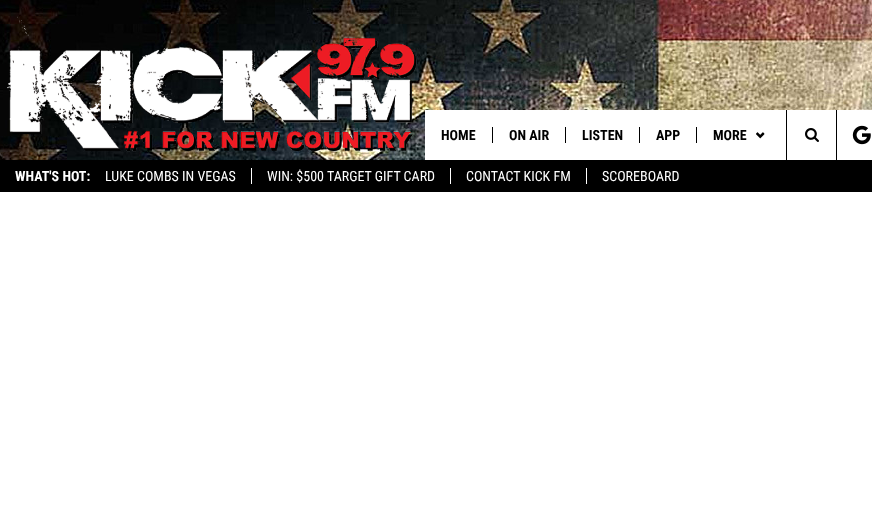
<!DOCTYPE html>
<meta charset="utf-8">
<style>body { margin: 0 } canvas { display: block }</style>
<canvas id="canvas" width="872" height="505"></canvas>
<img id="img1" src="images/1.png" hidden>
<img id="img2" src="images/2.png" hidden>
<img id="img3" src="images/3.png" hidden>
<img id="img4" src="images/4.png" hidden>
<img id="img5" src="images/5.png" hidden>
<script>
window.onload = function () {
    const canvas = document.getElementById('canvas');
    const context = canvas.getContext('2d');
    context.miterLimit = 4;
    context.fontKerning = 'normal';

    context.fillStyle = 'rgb(255, 255, 255)';
    context.fillRect(0, 0, 872, 505);
    context.drawImage(document.getElementById('img1'), 0, 0, 872, 160);
    context.drawImage(document.getElementById('img2'), 7, 16, 410, 136);
    context.fillRect(425, 110, 447, 50);
    context.fillStyle = 'rgb(0, 0, 0)';
    context.fillRect(492, 127, 1, 16);
    context.fillRect(565, 127, 1, 16);
    context.fillRect(639, 127, 1, 16);
    context.fillRect(696, 127, 1, 16);
    context.drawImage(document.getElementById('img3'), 756, 132, 9, 7);
    context.fillRect(786, 110, 1, 50);
    context.drawImage(document.getElementById('img4'), 805, 128, 14, 14);
    context.fillRect(836, 110, 1, 50);
    context.drawImage(document.getElementById('img5'), 852, 125, 19, 20);
    context.fillRect(0, 160, 872, 32);
    context.fillStyle = 'rgb(255, 255, 255)';
    context.fillRect(251, 168, 1, 16);
    context.fillRect(450, 168, 1, 16);
    context.fillRect(586, 168, 1, 16);
    context.font = 'bold 14px Roboto Condensed';
    context.fillStyle = 'rgb(0, 0, 0)';
    context.fillText('HOME', 441, 140);
    context.fillText('ON AIR', 509, 140);
    context.fillText('LISTEN', 582, 140);
    context.fillText('APP', 656, 140);
    context.fillText('MORE', 713, 140);
    context.fillStyle = 'rgb(255, 255, 255)';
    context.fillText('WHAT\'S HOT:', 15, 181);
    context.font = '14px Roboto Condensed';
    context.fillText('LUKE COMBS IN VEGAS', 105, 181);
    context.fillText('WIN: $500 TARGET GIFT CARD', 267, 181);
    context.fillText('CONTACT KICK FM', 466, 181);
    context.fillText('SCOREBOARD', 602, 181);
};
</script>
